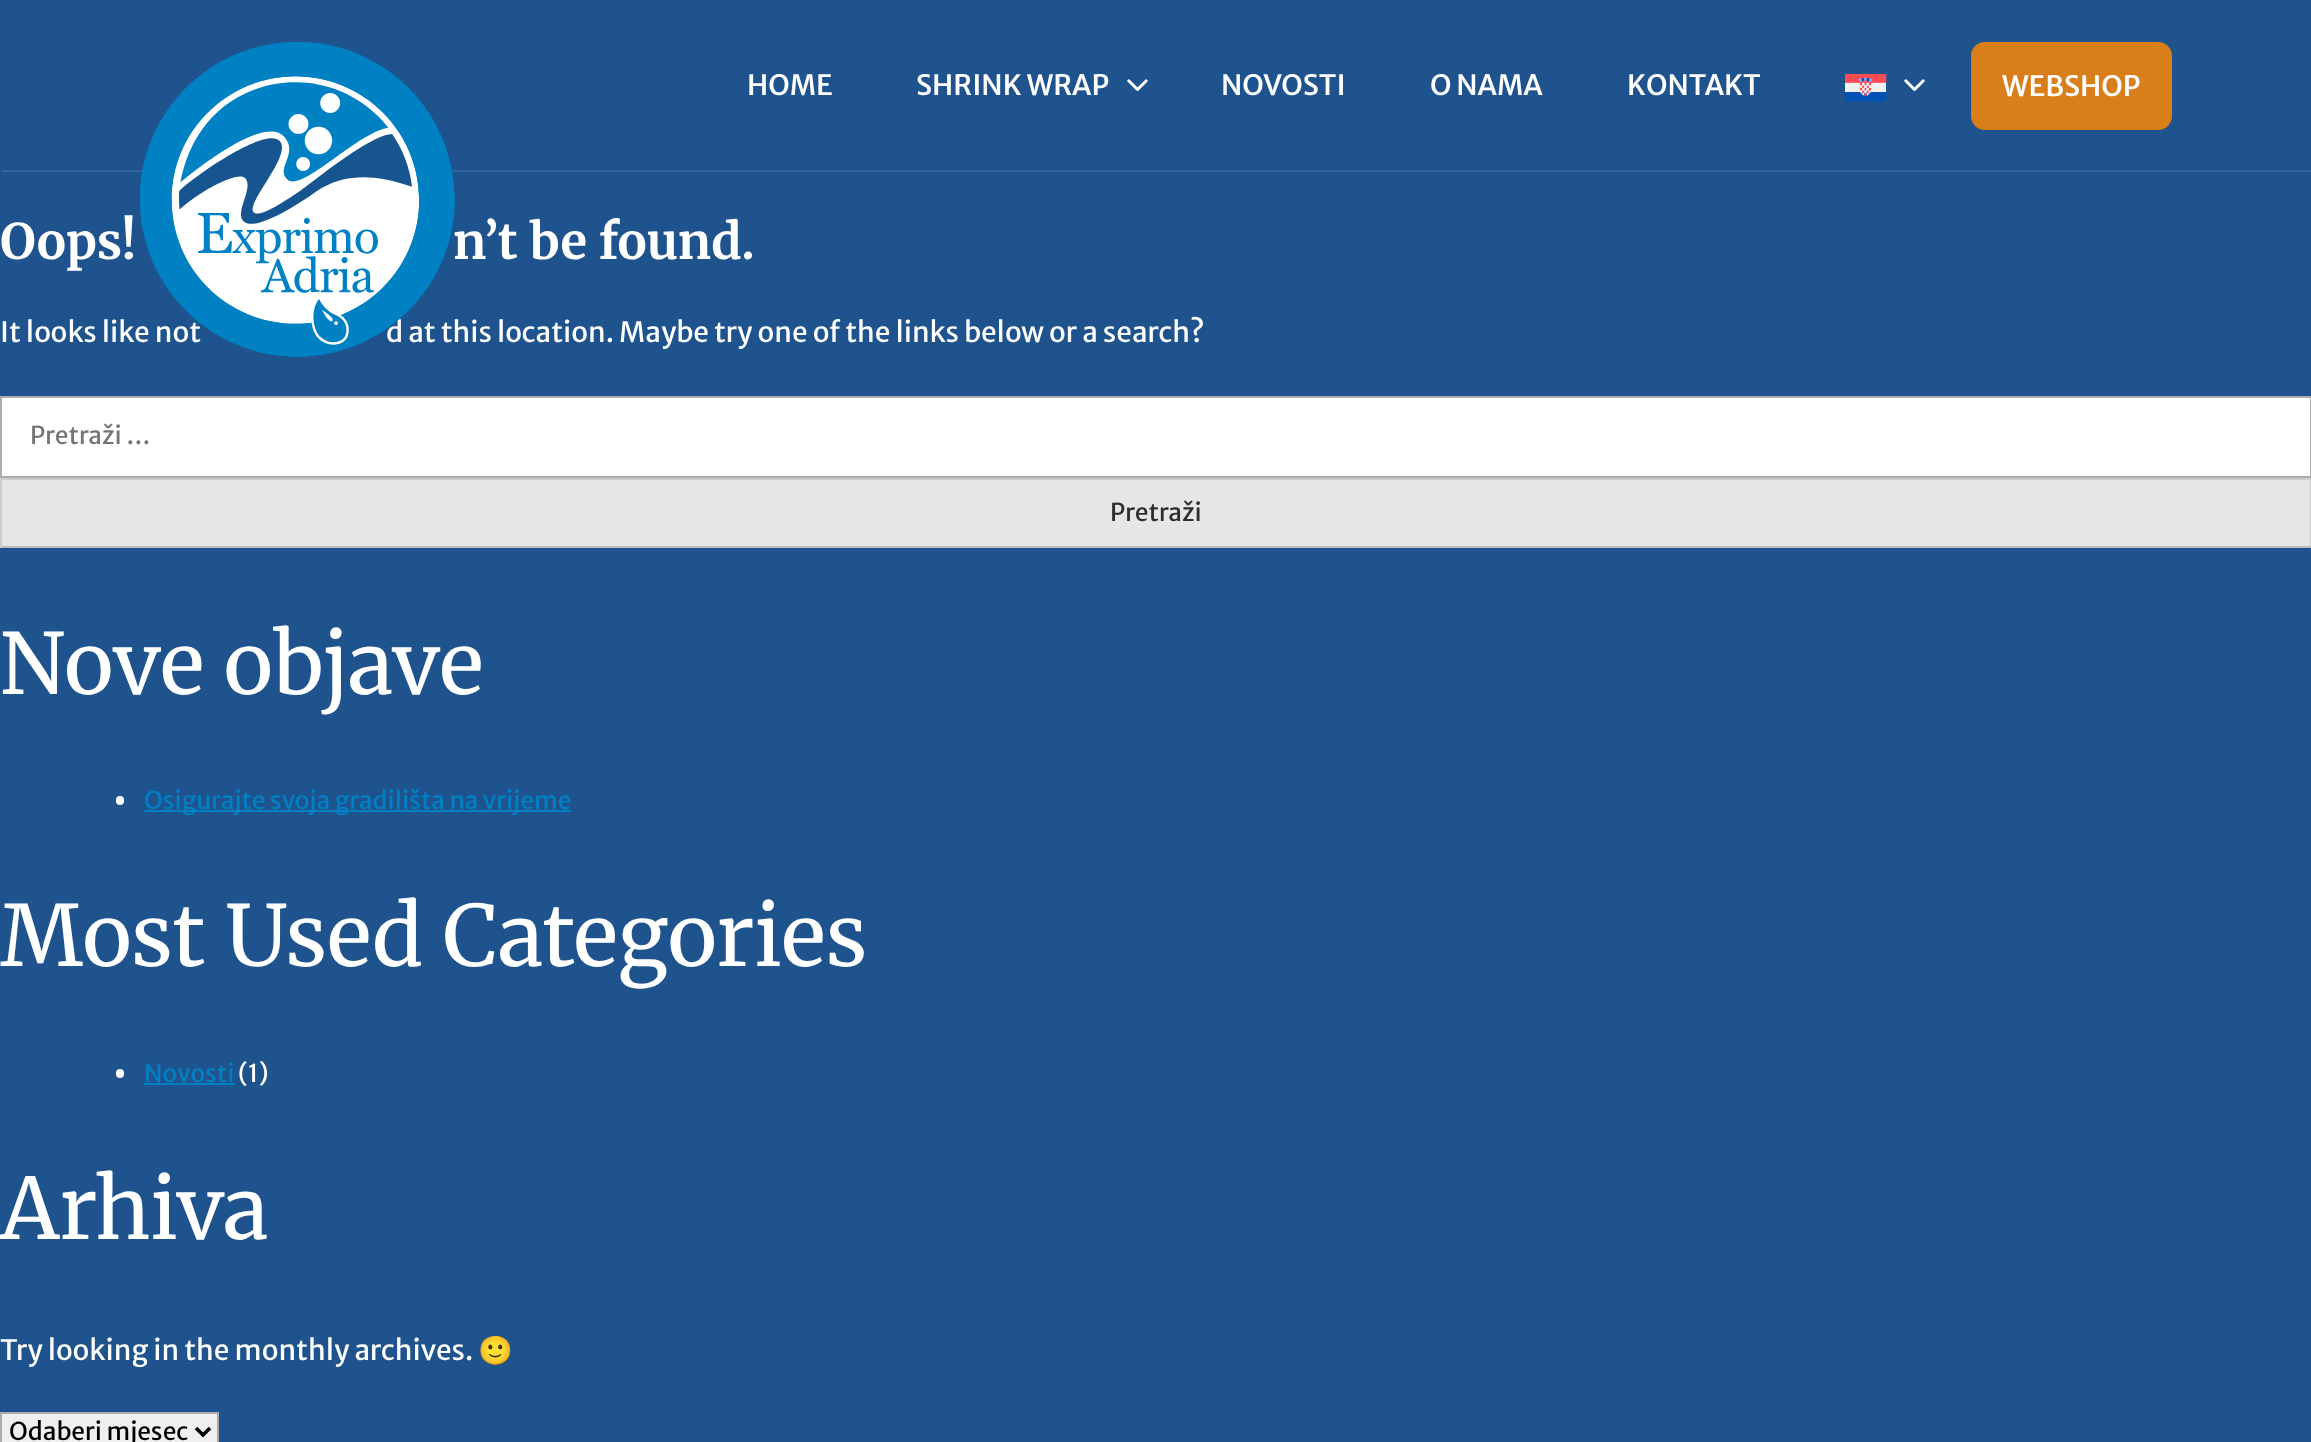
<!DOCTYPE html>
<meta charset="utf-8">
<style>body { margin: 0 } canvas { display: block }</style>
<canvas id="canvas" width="2311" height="1442"></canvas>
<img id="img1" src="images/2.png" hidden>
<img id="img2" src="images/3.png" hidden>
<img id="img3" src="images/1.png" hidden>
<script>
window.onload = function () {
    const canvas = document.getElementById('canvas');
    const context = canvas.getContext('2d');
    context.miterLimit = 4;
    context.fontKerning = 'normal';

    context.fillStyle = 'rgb(31, 83, 142)';
    context.fillRect(0, 0, 2311, 1442);
    context.drawImage(document.getElementById('img1'), 1127, 79, 21, 12);
    context.drawImage(document.getElementById('img2'), 1845, 74, 42, 28);
    context.drawImage(document.getElementById('img1'), 1904, 79, 21, 12);
    context.fillStyle = 'rgb(216, 126, 27)';
    context.beginPath();
    context.roundRect(1973, 44, 197, 84, 12);
    context.fill();
    context.strokeStyle = 'rgb(216, 126, 27)';
    context.lineWidth = 4;
    context.stroke();
    context.fillStyle = 'rgb(53, 100, 153)';
    context.fillRect(2, 170, 2309, 2);
    context.fillStyle = 'rgb(255, 255, 255)';
    context.beginPath();
    context.rect(1, 397, 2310, 80);
    context.fill();
    context.strokeStyle = 'rgb(172, 172, 172)';
    context.lineWidth = 2;
    context.stroke();
    context.fillStyle = 'rgb(230, 230, 230)';
    context.fillRect(2, 480, 2308, 66);
    context.fillStyle = 'rgb(204, 204, 204)';
    context.fillRect(0, 478, 2311, 2);
    context.fillRect(2310, 478, 1, 70);
    context.fillStyle = 'rgb(187, 187, 187)';
    context.fillRect(0, 546, 2311, 2);
    context.fillStyle = 'rgb(204, 204, 204)';
    context.fillRect(0, 478, 2, 70);
    context.fillStyle = 'rgb(255, 255, 255)';
    context.beginPath();
    context.roundRect(116, 796, 8, 9, 4);
    context.fill();
    context.fillStyle = 'rgb(0, 129, 196)';
    context.fillRect(144, 810, 427, 2);
    context.fillStyle = 'rgb(255, 255, 255)';
    context.beginPath();
    context.roundRect(116, 1069, 8, 9, 4);
    context.fill();
    context.fillStyle = 'rgb(0, 129, 196)';
    context.fillRect(144, 1083, 91, 2);
    context.fillStyle = 'rgb(239, 239, 239)';
    context.beginPath();
    context.rect(1, 1413, 217, 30);
    context.fill();
    context.stroke();
    context.beginPath();
    context.moveTo(196, 1428);
    context.lineTo(203, 1435);
    context.lineTo(210, 1428);
    context.strokeStyle = 'rgb(0, 0, 0)';
    context.lineWidth = 3.5;
    context.stroke();
    context.font = '500 28px Merriweather Sans';
    context.fillStyle = 'rgb(255, 255, 255)';
    context.fillText('HOME', 747, 95);
    context.fillText('SHRINK WRAP', 916, 95);
    context.fillText('NOVOSTI', 1221, 95);
    context.fillText('O NAMA', 1430, 95);
    context.fillText('KONTAKT', 1627, 95);
    context.fillText('WEBSHOP', 2002, 96);
    context.font = 'bold 49px Merriweather';
    context.fillText('Oops!', 0, 259);
    context.fillText('n’t be found.', 453, 259);
    context.font = '28px Merriweather Sans';
    context.fillText('It looks like not', 0, 342);
    context.fillText('d at this location. Maybe try one of the links below or a search?', 386, 342);
    context.drawImage(document.getElementById('img3'), 140, 42, 315, 315);
    context.font = '24.5px Merriweather Sans';
    context.fillStyle = 'rgb(117, 117, 117)';
    context.fillText('Pretraži …', 30, 444);
    context.fillStyle = 'rgb(46, 46, 46)';
    context.fillText('Pretraži', 1110, 521);
    context.font = '84px Merriweather';
    context.fillStyle = 'rgb(255, 255, 255)';
    context.fillText('Nove objave', 0, 694);
    context.font = '24.5px Merriweather Sans';
    context.fillStyle = 'rgb(0, 129, 196)';
    context.fillText('Osigurajte svoja gradilišta na vrijeme', 144, 809);
    context.font = '84px Merriweather';
    context.fillStyle = 'rgb(255, 255, 255)';
    context.fillText('Most Used Categories', 0, 966);
    context.font = '24.5px Merriweather Sans';
    context.fillStyle = 'rgb(0, 129, 196)';
    context.fillText('Novosti', 144, 1082);
    context.fillStyle = 'rgb(255, 255, 255)';
    context.fillText('(1)', 238, 1082);
    context.font = '84px Merriweather';
    context.fillText('Arhiva', 0, 1239);
    context.font = '28px Merriweather Sans';
    context.fillText('Try looking in the monthly archives.', 0, 1360);
    context.font = '28px Noto Color Emoji';
    context.fillText('🙂', 478, 1360);
    context.font = '24.5px Merriweather Sans';
    context.fillStyle = 'rgb(0, 0, 0)';
    context.fillText('Odaberi mjesec', 9, 1440);
};
</script>
